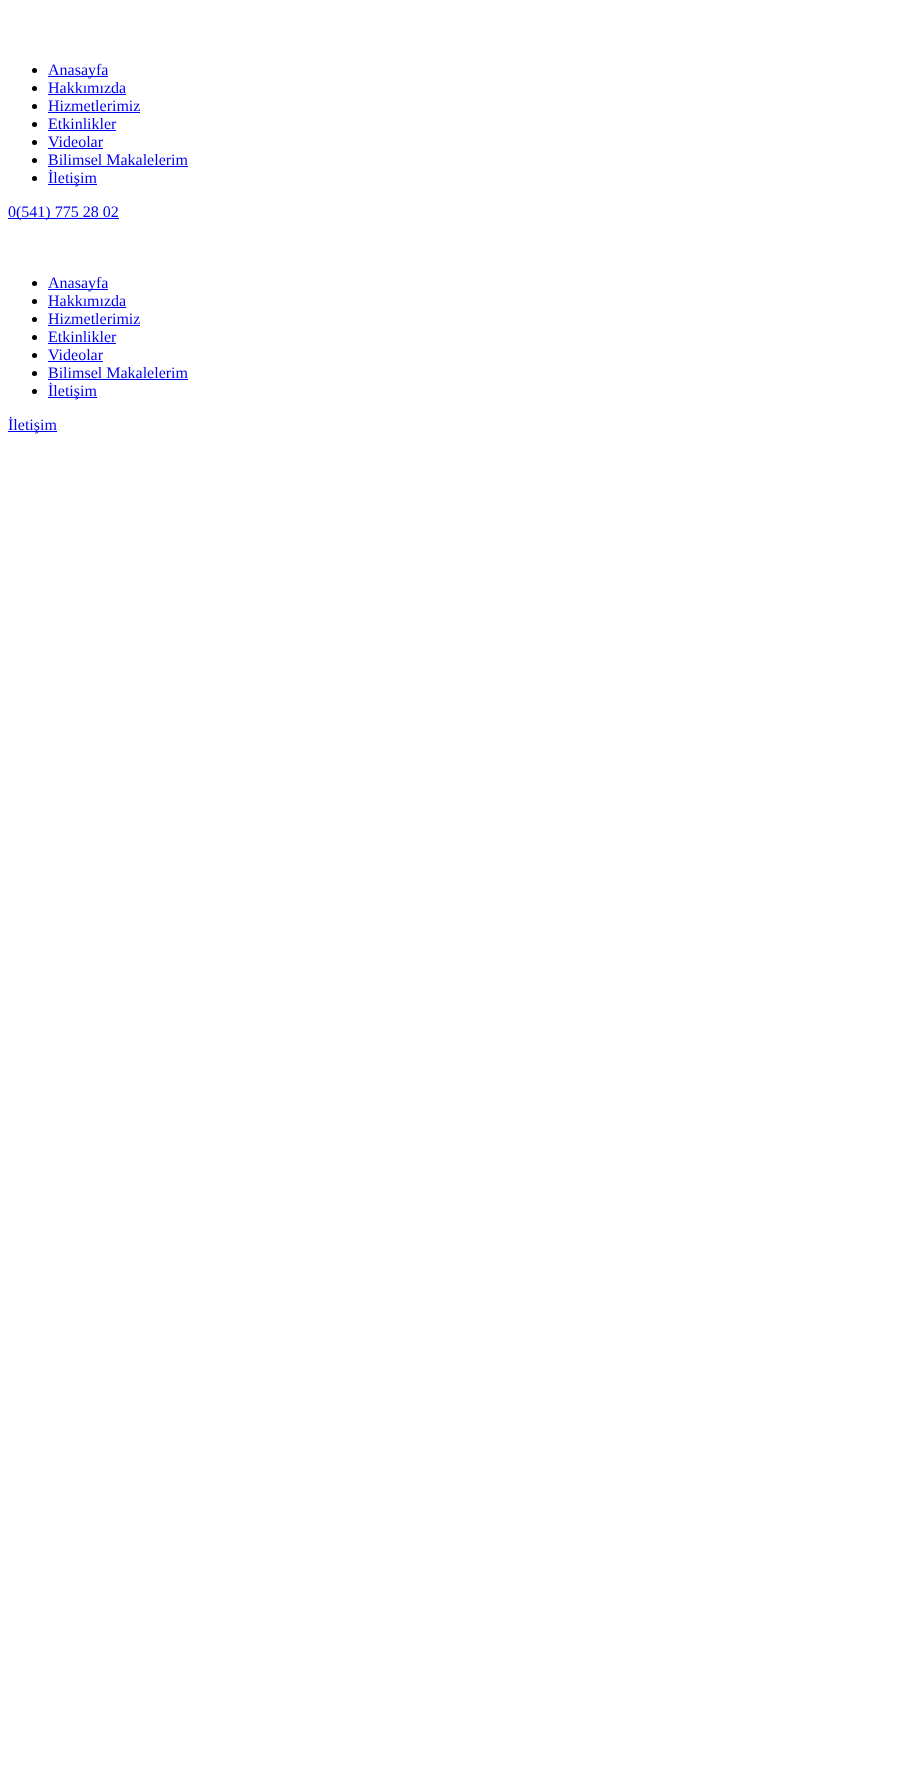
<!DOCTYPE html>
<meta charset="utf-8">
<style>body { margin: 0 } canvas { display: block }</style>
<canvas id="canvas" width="905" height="1789"></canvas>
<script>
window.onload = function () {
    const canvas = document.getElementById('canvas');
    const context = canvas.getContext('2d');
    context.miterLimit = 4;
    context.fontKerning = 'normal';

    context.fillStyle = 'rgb(255, 255, 255)';
    context.fillRect(0, 0, 905, 1789);
    context.fillStyle = 'rgb(0, 0, 0)';
    context.beginPath();
    context.arc(34.5, 70.5, 2.5, 0, 2 * Math.PI);
    context.fill();
    context.fillStyle = 'rgb(0, 0, 238)';
    context.fillRect(48, 76, 60, 1);
    context.fillStyle = 'rgb(0, 0, 0)';
    context.beginPath();
    context.arc(34.5, 88.5, 2.5, 0, 2 * Math.PI);
    context.fill();
    context.fillStyle = 'rgb(0, 0, 238)';
    context.fillRect(48, 94, 78, 1);
    context.fillStyle = 'rgb(0, 0, 0)';
    context.beginPath();
    context.arc(34.5, 106.5, 2.5, 0, 2 * Math.PI);
    context.fill();
    context.fillStyle = 'rgb(0, 0, 238)';
    context.fillRect(48, 112, 92, 1);
    context.fillStyle = 'rgb(0, 0, 0)';
    context.beginPath();
    context.arc(34.5, 124.5, 2.5, 0, 2 * Math.PI);
    context.fill();
    context.fillStyle = 'rgb(0, 0, 238)';
    context.fillRect(48, 130, 68, 1);
    context.fillStyle = 'rgb(0, 0, 0)';
    context.beginPath();
    context.arc(34.5, 142.5, 2.5, 0, 2 * Math.PI);
    context.fill();
    context.fillStyle = 'rgb(0, 0, 238)';
    context.fillRect(48, 148, 55, 1);
    context.fillStyle = 'rgb(0, 0, 0)';
    context.beginPath();
    context.arc(34.5, 160.5, 2.5, 0, 2 * Math.PI);
    context.fill();
    context.fillStyle = 'rgb(0, 0, 238)';
    context.fillRect(48, 166, 140, 1);
    context.fillStyle = 'rgb(0, 0, 0)';
    context.beginPath();
    context.arc(34.5, 178.5, 2.5, 0, 2 * Math.PI);
    context.fill();
    context.fillStyle = 'rgb(0, 0, 238)';
    context.fillRect(48, 184, 49, 1);
    context.fillRect(8, 218, 111, 1);
    context.fillStyle = 'rgb(0, 0, 0)';
    context.beginPath();
    context.arc(34.5, 283.5, 2.5, 0, 2 * Math.PI);
    context.fill();
    context.fillStyle = 'rgb(0, 0, 238)';
    context.fillRect(48, 289, 60, 1);
    context.fillStyle = 'rgb(0, 0, 0)';
    context.beginPath();
    context.arc(34.5, 301.5, 2.5, 0, 2 * Math.PI);
    context.fill();
    context.fillStyle = 'rgb(0, 0, 238)';
    context.fillRect(48, 307, 78, 1);
    context.fillStyle = 'rgb(0, 0, 0)';
    context.beginPath();
    context.arc(34.5, 319.5, 2.5, 0, 2 * Math.PI);
    context.fill();
    context.fillStyle = 'rgb(0, 0, 238)';
    context.fillRect(48, 325, 92, 1);
    context.fillStyle = 'rgb(0, 0, 0)';
    context.beginPath();
    context.arc(34.5, 337.5, 2.5, 0, 2 * Math.PI);
    context.fill();
    context.fillStyle = 'rgb(0, 0, 238)';
    context.fillRect(48, 343, 68, 1);
    context.fillStyle = 'rgb(0, 0, 0)';
    context.beginPath();
    context.arc(34.5, 355.5, 2.5, 0, 2 * Math.PI);
    context.fill();
    context.fillStyle = 'rgb(0, 0, 238)';
    context.fillRect(48, 361, 55, 1);
    context.fillStyle = 'rgb(0, 0, 0)';
    context.beginPath();
    context.arc(34.5, 373.5, 2.5, 0, 2 * Math.PI);
    context.fill();
    context.fillStyle = 'rgb(0, 0, 238)';
    context.fillRect(48, 379, 140, 1);
    context.fillStyle = 'rgb(0, 0, 0)';
    context.beginPath();
    context.arc(34.5, 391.5, 2.5, 0, 2 * Math.PI);
    context.fill();
    context.fillStyle = 'rgb(0, 0, 238)';
    context.fillRect(48, 397, 49, 1);
    context.fillRect(8, 431, 49, 1);
    context.font = '16px Liberation Serif';
    context.fillText('Anasayfa', 48, 75);
    context.fillText('Hakkımızda', 48, 93);
    context.fillText('Hizmetlerimiz', 48, 111);
    context.fillText('Etkinlikler', 48, 129);
    context.fillText('Videolar', 48, 147);
    context.fillText('Bilimsel Makalelerim', 48, 165);
    context.fillText('İletişim', 48, 183);
    context.fillText('0(541) 775 28 02', 8, 217);
    context.fillText('Anasayfa', 48, 288);
    context.fillText('Hakkımızda', 48, 306);
    context.fillText('Hizmetlerimiz', 48, 324);
    context.fillText('Etkinlikler', 48, 342);
    context.fillText('Videolar', 48, 360);
    context.fillText('Bilimsel Makalelerim', 48, 378);
    context.fillText('İletişim', 48, 396);
    context.fillText('İletişim', 8, 430);
};
</script>
